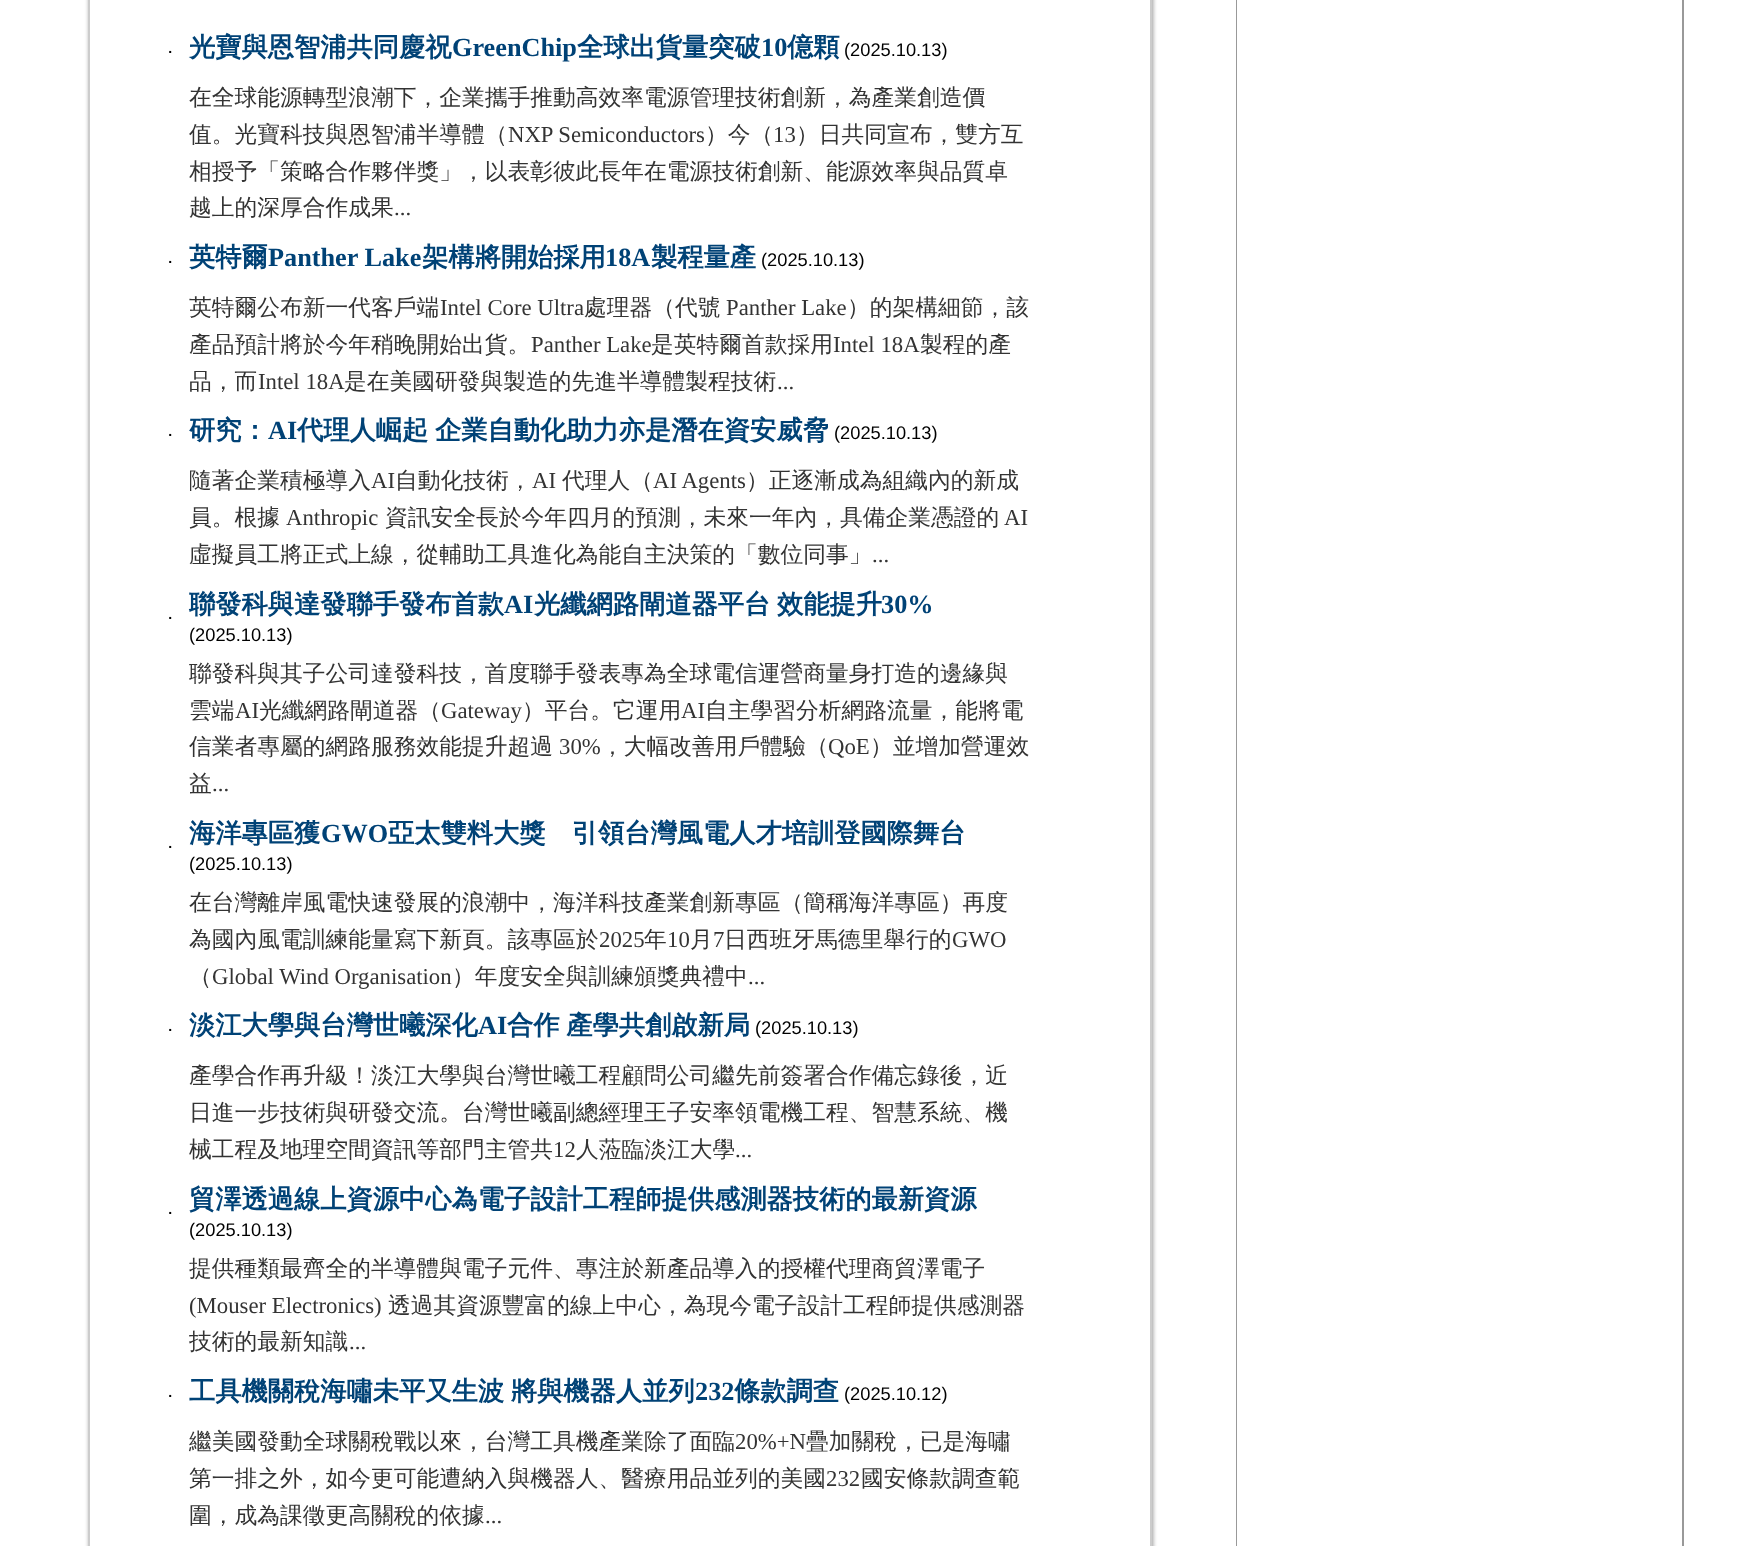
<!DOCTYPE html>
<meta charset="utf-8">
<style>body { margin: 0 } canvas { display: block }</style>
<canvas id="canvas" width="1763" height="1546"></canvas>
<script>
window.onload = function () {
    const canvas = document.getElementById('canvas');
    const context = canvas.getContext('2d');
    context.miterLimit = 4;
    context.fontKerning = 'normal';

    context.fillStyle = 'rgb(255, 255, 255)';
    context.fillRect(0, 0, 1763, 1546);
    context.save();
    context.beginPath();
    context.moveTo(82, 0);
    context.lineTo(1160, 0);
    context.lineTo(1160, 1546);
    context.lineTo(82, 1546);
    context.closePath();
    context.moveTo(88, -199);
    context.lineTo(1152, -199);
    context.lineTo(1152, 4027);
    context.lineTo(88, 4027);
    context.closePath();
    context.clip('evenodd');
    context.fillStyle = 'rgb(153, 153, 153)';
    context.filter = 'blur(2px)';
    context.beginPath();
    context.rect(89, -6, 1064, 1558);
    context.fill();
    context.filter = 'none';
    context.restore();
    context.strokeStyle = 'rgb(204, 204, 204)';
    context.lineWidth = 2;
    context.strokeRect(89, -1, 1062, 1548);
    context.fillStyle = 'rgb(153, 153, 153)';
    context.fillRect(1236, 0, 448, 1546);
    context.fillStyle = 'rgb(255, 255, 255)';
    context.fillRect(1237, 0, 445, 1546);
    context.font = '500 18.25px WenQuanYi Zen Hei';
    context.fillStyle = 'rgb(0, 0, 0)';
    context.fillText('．', 161, 53);
    context.font = 'bold 26.25px WenQuanYi Zen Hei';
    context.fillStyle = 'rgb(0, 66, 118)';
    context.fillText('光寶與恩智浦共同慶祝', 189, 56);
    context.font = 'bold 26.25px Liberation Serif';
    context.fillText('GreenChip', 452, 56);
    context.font = 'bold 26.25px WenQuanYi Zen Hei';
    context.fillText('全球出貨量突破', 577, 56);
    context.font = 'bold 26.25px Liberation Serif';
    context.fillText('10', 761, 56);
    context.font = 'bold 26.25px WenQuanYi Zen Hei';
    context.fillText('億顆', 787, 56);
    context.font = '18.25px Liberation Sans';
    context.fillStyle = 'rgb(0, 0, 0)';
    context.fillText('(2025.10.13)', 844, 56);
    context.font = '500 22.75px WenQuanYi Zen Hei';
    context.fillStyle = 'rgb(51, 51, 51)';
    context.fillText('在全球能源轉型浪潮下，企業攜手推動高效率電源管理技術創新，為產業創造價', 189, 105);
    context.fillText('值。光寶科技與恩智浦半導體（', 189, 142);
    context.font = '22.75px Liberation Serif';
    context.fillText('NXP Semiconductors', 508, 142);
    context.font = '500 22.75px WenQuanYi Zen Hei';
    context.fillText('）今（', 705, 142);
    context.font = '22.75px Liberation Serif';
    context.fillText('13', 773, 142);
    context.font = '500 22.75px WenQuanYi Zen Hei';
    context.fillText('）日共同宣布，雙方互', 796, 142);
    context.fillText('相授予「策略合作夥伴獎」，以表彰彼此長年在電源技術創新、能源效率與品質卓', 189, 179);
    context.fillText('越上的深厚合作成果', 189, 215);
    context.font = '22.75px Liberation Serif';
    context.fillText('...', 394, 215);
    context.font = '500 18.25px WenQuanYi Zen Hei';
    context.fillStyle = 'rgb(0, 0, 0)';
    context.fillText('．', 161, 263);
    context.font = 'bold 26.25px WenQuanYi Zen Hei';
    context.fillStyle = 'rgb(0, 66, 118)';
    context.fillText('英特爾', 189, 266);
    context.font = 'bold 26.25px Liberation Serif';
    context.fillText('Panther Lake', 268, 266);
    context.font = 'bold 26.25px WenQuanYi Zen Hei';
    context.fillText('架構將開始採用', 422, 266);
    context.font = 'bold 26.25px Liberation Serif';
    context.fillText('18A', 605, 266);
    context.font = 'bold 26.25px WenQuanYi Zen Hei';
    context.fillText('製程量產', 651, 266);
    context.font = '18.25px Liberation Sans';
    context.fillStyle = 'rgb(0, 0, 0)';
    context.fillText('(2025.10.13)', 761, 266);
    context.font = '500 22.75px WenQuanYi Zen Hei';
    context.fillStyle = 'rgb(51, 51, 51)';
    context.fillText('英特爾公布新一代客戶端', 189, 315);
    context.font = '22.75px Liberation Serif';
    context.fillText('Intel Core Ultra', 440, 315);
    context.font = '500 22.75px WenQuanYi Zen Hei';
    context.fillText('處理器（代號', 584, 315);
    context.font = '22.75px Liberation Serif';
    context.fillText('Panther Lake', 726, 315);
    context.font = '500 22.75px WenQuanYi Zen Hei';
    context.fillText('）的架構細節，該', 847, 315);
    context.fillText('產品預計將於今年稍晚開始出貨。', 189, 352);
    context.font = '22.75px Liberation Serif';
    context.fillText('Panther Lake', 531, 352);
    context.font = '500 22.75px WenQuanYi Zen Hei';
    context.fillText('是英特爾首款採用', 651, 352);
    context.font = '22.75px Liberation Serif';
    context.fillText('Intel 18A', 833, 352);
    context.font = '500 22.75px WenQuanYi Zen Hei';
    context.fillText('製程的產', 920, 352);
    context.fillText('品，而', 189, 389);
    context.font = '22.75px Liberation Serif';
    context.fillText('Intel 18A', 258, 389);
    context.font = '500 22.75px WenQuanYi Zen Hei';
    context.fillText('是在美國研發與製造的先進半導體製程技術', 344, 389);
    context.font = '22.75px Liberation Serif';
    context.fillText('...', 777, 389);
    context.font = '500 18.25px WenQuanYi Zen Hei';
    context.fillStyle = 'rgb(0, 0, 0)';
    context.fillText('．', 161, 436);
    context.font = 'bold 26.25px WenQuanYi Zen Hei';
    context.fillStyle = 'rgb(0, 66, 118)';
    context.fillText('研究：', 189, 439);
    context.font = 'bold 26.25px Liberation Serif';
    context.fillText('AI', 268, 439);
    context.wordSpacing = '-1px';
    context.font = 'bold 26.25px WenQuanYi Zen Hei';
    context.fillText('代理人崛起 企業自動化助力亦是潛在資安威脅', 297, 439);
    context.wordSpacing = '0px';
    context.font = '18.25px Liberation Sans';
    context.fillStyle = 'rgb(0, 0, 0)';
    context.fillText('(2025.10.13)', 834, 439);
    context.font = '500 22.75px WenQuanYi Zen Hei';
    context.fillStyle = 'rgb(51, 51, 51)';
    context.fillText('隨著企業積極導入', 189, 488);
    context.font = '22.75px Liberation Serif';
    context.fillText('AI', 371, 488);
    context.font = '500 22.75px WenQuanYi Zen Hei';
    context.fillText('自動化技術，', 395, 488);
    context.font = '22.75px Liberation Serif';
    context.fillText('AI', 532, 488);
    context.font = '500 22.75px WenQuanYi Zen Hei';
    context.fillText('代理人（', 562, 488);
    context.font = '22.75px Liberation Serif';
    context.fillText('AI Agents', 653, 488);
    context.font = '500 22.75px WenQuanYi Zen Hei';
    context.fillText('）正逐漸成為組織內的新成', 746, 488);
    context.fillText('員。根據', 189, 525);
    context.font = '22.75px Liberation Serif';
    context.fillText('Anthropic', 286, 525);
    context.font = '500 22.75px WenQuanYi Zen Hei';
    context.fillText('資訊安全長於今年四月的預測，未來一年內，具備企業憑證的', 385, 525);
    context.font = '22.75px Liberation Serif';
    context.fillText('AI', 1004, 525);
    context.font = '500 22.75px WenQuanYi Zen Hei';
    context.fillText('虛擬員工將正式上線，從輔助工具進化為能自主決策的「數位同事」', 189, 562);
    context.font = '22.75px Liberation Serif';
    context.fillText('...', 872, 562);
    context.font = '500 18.25px WenQuanYi Zen Hei';
    context.fillStyle = 'rgb(0, 0, 0)';
    context.fillText('．', 161, 619);
    context.font = 'bold 26.25px WenQuanYi Zen Hei';
    context.fillStyle = 'rgb(0, 66, 118)';
    context.fillText('聯發科與達發聯手發布首款', 189, 613);
    context.font = 'bold 26.25px Liberation Serif';
    context.fillText('AI', 504, 613);
    context.wordSpacing = '-1px';
    context.font = 'bold 26.25px WenQuanYi Zen Hei';
    context.fillText('光纖網路閘道器平台 效能提升', 534, 613);
    context.wordSpacing = '0px';
    context.font = 'bold 26.25px Liberation Serif';
    context.fillText('30%', 881, 613);
    context.font = '18.25px Liberation Sans';
    context.fillStyle = 'rgb(0, 0, 0)';
    context.fillText('(2025.10.13)', 189, 641);
    context.font = '500 22.75px WenQuanYi Zen Hei';
    context.fillStyle = 'rgb(51, 51, 51)';
    context.fillText('聯發科與其子公司達發科技，首度聯手發表專為全球電信運營商量身打造的邊緣與', 189, 681);
    context.fillText('雲端', 189, 718);
    context.font = '22.75px Liberation Serif';
    context.fillText('AI', 235, 718);
    context.font = '500 22.75px WenQuanYi Zen Hei';
    context.fillText('光纖網路閘道器（', 259, 718);
    context.font = '22.75px Liberation Serif';
    context.fillText('Gateway', 441, 718);
    context.font = '500 22.75px WenQuanYi Zen Hei';
    context.fillText('）平台。它運用', 522, 718);
    context.font = '22.75px Liberation Serif';
    context.fillText('AI', 681, 718);
    context.font = '500 22.75px WenQuanYi Zen Hei';
    context.fillText('自主學習分析網路流量，能將電', 705, 718);
    context.fillText('信業者專屬的網路服務效能提升超過', 189, 754);
    context.font = '22.75px Liberation Serif';
    context.fillText('30%', 559, 754);
    context.font = '500 22.75px WenQuanYi Zen Hei';
    context.fillText('，大幅改善用戶體驗（', 601, 754);
    context.font = '22.75px Liberation Serif';
    context.fillText('QoE', 828, 754);
    context.font = '500 22.75px WenQuanYi Zen Hei';
    context.fillText('）並增加營運效', 870, 754);
    context.fillText('益', 189, 791);
    context.font = '22.75px Liberation Serif';
    context.fillText('...', 212, 791);
    context.font = '500 18.25px WenQuanYi Zen Hei';
    context.fillStyle = 'rgb(0, 0, 0)';
    context.fillText('．', 161, 848);
    context.font = 'bold 26.25px WenQuanYi Zen Hei';
    context.fillStyle = 'rgb(0, 66, 118)';
    context.fillText('海洋專區獲', 189, 842);
    context.font = 'bold 26.25px Liberation Serif';
    context.fillText('GWO', 321, 842);
    context.font = 'bold 26.25px WenQuanYi Zen Hei';
    context.fillText('亞太雙料大獎　引領台灣風電人才培訓登國際舞台', 388, 842);
    context.font = '18.25px Liberation Sans';
    context.fillStyle = 'rgb(0, 0, 0)';
    context.fillText('(2025.10.13)', 189, 870);
    context.font = '500 22.75px WenQuanYi Zen Hei';
    context.fillStyle = 'rgb(51, 51, 51)';
    context.fillText('在台灣離岸風電快速發展的浪潮中，海洋科技產業創新專區（簡稱海洋專區）再度', 189, 910);
    context.fillText('為國內風電訓練能量寫下新頁。該專區於', 189, 947);
    context.font = '22.75px Liberation Serif';
    context.fillText('2025', 599, 947);
    context.font = '500 22.75px WenQuanYi Zen Hei';
    context.fillText('年', 644, 947);
    context.font = '22.75px Liberation Serif';
    context.fillText('10', 667, 947);
    context.font = '500 22.75px WenQuanYi Zen Hei';
    context.fillText('月', 690, 947);
    context.font = '22.75px Liberation Serif';
    context.fillText('7', 713, 947);
    context.font = '500 22.75px WenQuanYi Zen Hei';
    context.fillText('日西班牙馬德里舉行的', 724, 947);
    context.font = '22.75px Liberation Serif';
    context.fillText('GWO', 952, 947);
    context.font = '500 22.75px WenQuanYi Zen Hei';
    context.fillText('（', 189, 984);
    context.font = '22.75px Liberation Serif';
    context.fillText('Global Wind Organisation', 212, 984);
    context.font = '500 22.75px WenQuanYi Zen Hei';
    context.fillText('）年度安全與訓練頒獎典禮中', 452, 984);
    context.font = '22.75px Liberation Serif';
    context.fillText('...', 748, 984);
    context.font = '500 18.25px WenQuanYi Zen Hei';
    context.fillStyle = 'rgb(0, 0, 0)';
    context.fillText('．', 161, 1031);
    context.font = 'bold 26.25px WenQuanYi Zen Hei';
    context.fillStyle = 'rgb(0, 66, 118)';
    context.fillText('淡江大學與台灣世曦深化', 189, 1034);
    context.font = 'bold 26.25px Liberation Serif';
    context.fillText('AI', 478, 1034);
    context.wordSpacing = '-1px';
    context.font = 'bold 26.25px WenQuanYi Zen Hei';
    context.fillText('合作 產學共創啟新局', 507, 1034);
    context.wordSpacing = '0px';
    context.font = '18.25px Liberation Sans';
    context.fillStyle = 'rgb(0, 0, 0)';
    context.fillText('(2025.10.13)', 755, 1034);
    context.font = '500 22.75px WenQuanYi Zen Hei';
    context.fillStyle = 'rgb(51, 51, 51)';
    context.fillText('產學合作再升級！淡江大學與台灣世曦工程顧問公司繼先前簽署合作備忘錄後，近', 189, 1083);
    context.fillText('日進一步技術與研發交流。台灣世曦副總經理王子安率領電機工程、智慧系統、機', 189, 1120);
    context.fillText('械工程及地理空間資訊等部門主管共', 189, 1157);
    context.font = '22.75px Liberation Serif';
    context.fillText('12', 553, 1157);
    context.font = '500 22.75px WenQuanYi Zen Hei';
    context.fillText('人蒞臨淡江大學', 576, 1157);
    context.font = '22.75px Liberation Serif';
    context.fillText('...', 735, 1157);
    context.font = '500 18.25px WenQuanYi Zen Hei';
    context.fillStyle = 'rgb(0, 0, 0)';
    context.fillText('．', 161, 1214);
    context.font = 'bold 26.25px WenQuanYi Zen Hei';
    context.fillStyle = 'rgb(0, 66, 118)';
    context.fillText('貿澤透過線上資源中心為電子設計工程師提供感測器技術的最新資源', 189, 1208);
    context.font = '18.25px Liberation Sans';
    context.fillStyle = 'rgb(0, 0, 0)';
    context.fillText('(2025.10.13)', 189, 1236);
    context.font = '500 22.75px WenQuanYi Zen Hei';
    context.fillStyle = 'rgb(51, 51, 51)';
    context.fillText('提供種類最齊全的半導體與電子元件、專注於新產品導入的授權代理商貿澤電子', 189, 1276);
    context.font = '22.75px Liberation Serif';
    context.fillText('(Mouser Electronics)', 189, 1313);
    context.font = '500 22.75px WenQuanYi Zen Hei';
    context.fillText('透過其資源豐富的線上中心，為現今電子設計工程師提供感測器', 388, 1313);
    context.fillText('技術的最新知識', 189, 1349);
    context.font = '22.75px Liberation Serif';
    context.fillText('...', 349, 1349);
    context.font = '500 18.25px WenQuanYi Zen Hei';
    context.fillStyle = 'rgb(0, 0, 0)';
    context.fillText('．', 161, 1397);
    context.wordSpacing = '-1px';
    context.font = 'bold 26.25px WenQuanYi Zen Hei';
    context.fillStyle = 'rgb(0, 66, 118)';
    context.fillText('工具機關稅海嘯未平又生波 將與機器人並列', 189, 1400);
    context.wordSpacing = '0px';
    context.font = 'bold 26.25px Liberation Serif';
    context.fillText('232', 695, 1400);
    context.font = 'bold 26.25px WenQuanYi Zen Hei';
    context.fillText('條款調查', 734, 1400);
    context.font = '18.25px Liberation Sans';
    context.fillStyle = 'rgb(0, 0, 0)';
    context.fillText('(2025.10.12)', 844, 1400);
    context.font = '500 22.75px WenQuanYi Zen Hei';
    context.fillStyle = 'rgb(51, 51, 51)';
    context.fillText('繼美國發動全球關稅戰以來，台灣工具機產業除了面臨', 189, 1449);
    context.font = '22.75px Liberation Serif';
    context.fillText('20%+N', 735, 1449);
    context.font = '500 22.75px WenQuanYi Zen Hei';
    context.fillText('疊加關稅，已是海嘯', 806, 1449);
    context.fillText('第一排之外，如今更可能遭納入與機器人、醫療用品並列的美國', 189, 1486);
    context.font = '22.75px Liberation Serif';
    context.fillText('232', 826, 1486);
    context.font = '500 22.75px WenQuanYi Zen Hei';
    context.fillText('國安條款調查範', 861, 1486);
    context.fillText('圍，成為課徵更高關稅的依據', 189, 1523);
    context.font = '22.75px Liberation Serif';
    context.fillText('...', 485, 1523);
};
</script>
